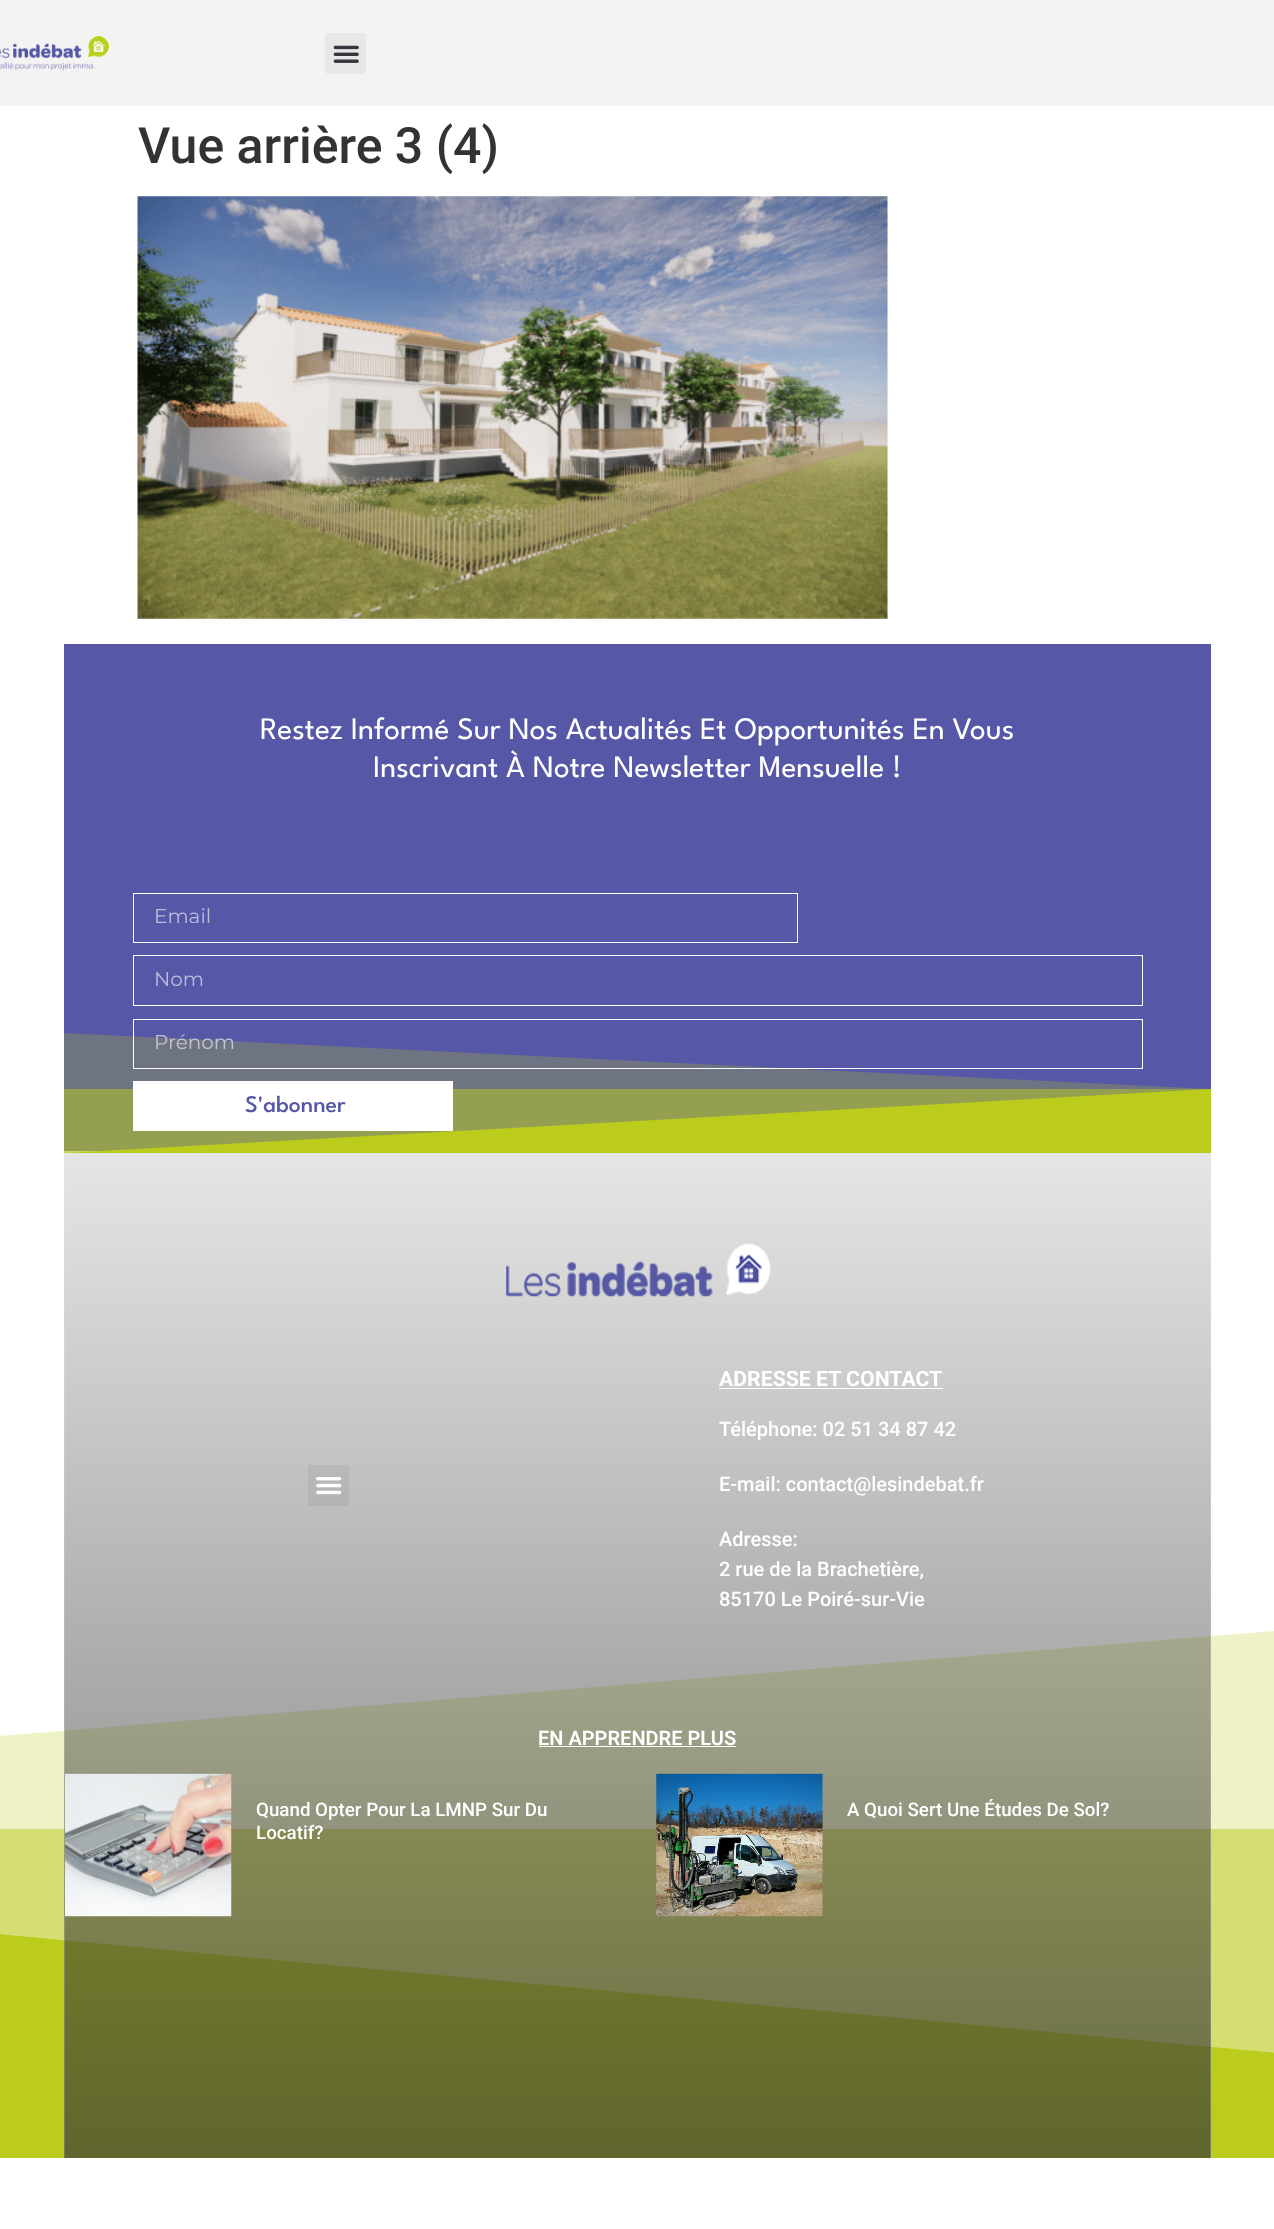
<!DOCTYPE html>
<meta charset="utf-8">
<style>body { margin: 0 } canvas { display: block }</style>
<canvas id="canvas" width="1274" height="2229"></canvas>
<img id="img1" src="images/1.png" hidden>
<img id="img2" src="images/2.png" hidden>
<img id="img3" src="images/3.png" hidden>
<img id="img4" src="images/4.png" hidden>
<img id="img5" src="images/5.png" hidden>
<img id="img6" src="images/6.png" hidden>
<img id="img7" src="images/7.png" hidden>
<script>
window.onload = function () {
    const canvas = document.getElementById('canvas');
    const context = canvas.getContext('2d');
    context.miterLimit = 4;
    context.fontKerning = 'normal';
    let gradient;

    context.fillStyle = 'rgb(255, 255, 255)';
    context.fillRect(0, 0, 1274, 2229);
    context.fillStyle = 'rgb(222, 230, 142)';
    context.fillRect(0, 1829, 1274, 224);
    context.fillStyle = 'rgb(244, 243, 243)';
    context.fillRect(0, 0, 1274, 106);
    context.drawImage(document.getElementById('img1'), 0, 36, 109, 34);
    context.fillStyle = 'rgb(232, 231, 231)';
    context.beginPath();
    context.roundRect(325, 33, 41, 41, 4);
    context.fill();
    context.drawImage(document.getElementById('img2'), 333, 45, 26, 18);
    context.drawImage(document.getElementById('img3'), 137, 196, 751, 423);
    context.fillStyle = 'rgb(86, 87, 166)';
    context.fillRect(64, 644, 1147, 507);
    context.strokeStyle = 'rgb(255, 255, 255)';
    context.strokeRect(133.5, 893.5, 664, 49);
    context.strokeRect(133.5, 955.5, 1009, 50);
    context.fillStyle = 'rgb(188, 204, 29)';
    context.beginPath();
    context.moveTo(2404, 2158);
    context.lineTo(-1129, 2158);
    context.lineTo(-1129, 1829);
    context.closePath();
    context.fill();
    context.fillStyle = 'rgba(188, 204, 29, 0.25)';
    context.beginPath();
    context.moveTo(-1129, 2158);
    context.lineTo(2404, 2158);
    context.lineTo(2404, 1538);
    context.lineTo(-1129, 1829);
    context.closePath();
    context.fill();
    context.fillStyle = 'rgba(255, 247, 241, 0.22)';
    context.fillRect(64, 1151, 1, 1007);
    context.fillRect(1210, 1153, 1, 1005);
    gradient = context.createLinearGradient(637, 923, 638, 2158);
    gradient.addColorStop(0, 'rgba(55, 55, 54, 0)');
    gradient.addColorStop(1, 'rgba(55, 55, 54, 0.69)');
    context.fillStyle = gradient;
    context.fillRect(64, 1151, 1147, 1007);
    context.fillStyle = 'rgba(255, 247, 241, 0.15)';
    context.fillRect(64, 1151, 1, 1007);
    context.save();
    context.beginPath();
    context.rect(64, 1031, 1147, 122);
    context.clip();
    context.fillStyle = 'rgb(188, 204, 29)';
    context.beginPath();
    context.moveTo(63, 1153);
    context.lineTo(1212, 1153);
    context.lineTo(1212, 1089);
    context.closePath();
    context.fill();
    context.restore();
    context.fillStyle = 'rgba(188, 204, 29, 0.5)';
    context.fillRect(64, 1089, 1147, 64);
    context.save();
    context.beginPath();
    context.rect(64, 1031, 1147, 122);
    context.clip();
    context.fillStyle = 'rgba(188, 204, 29, 0.25)';
    context.beginPath();
    context.moveTo(1212, 1153);
    context.lineTo(63, 1153);
    context.lineTo(63, 1033);
    context.lineTo(1212, 1089);
    context.closePath();
    context.fill();
    context.restore();
    context.strokeRect(133.5, 1019.5, 1009, 49);
    context.fillStyle = 'rgb(255, 255, 255)';
    context.fillRect(133, 1081, 320, 50);
    context.fillStyle = 'rgba(255, 247, 241, 0.15)';
    context.fillRect(1210, 1153, 1, 1005);
    context.drawImage(document.getElementById('img4'), 506, 1243, 265, 54);
    context.fillStyle = 'rgba(0, 0, 0, 0.05)';
    context.fillRect(308, 1465, 41, 41);
    context.drawImage(document.getElementById('img5'), 316, 1477, 26, 18);
    context.fillStyle = 'rgb(255, 255, 255)';
    context.fillRect(719, 1388, 224, 1);
    context.fillRect(539, 1746, 197, 1);
    context.drawImage(document.getElementById('img6'), 65, 1773, 167, 144);
    context.drawImage(document.getElementById('img7'), 656, 1773, 167, 144);
    context.font = '500 50px Roboto';
    context.fillStyle = 'rgb(51, 51, 51)';
    context.fillText('Vue arrière 3 (4)', 138, 163);
    context.font = '31.25px League Spartan';
    context.fillStyle = 'rgb(255, 255, 255)';
    context.fillText('Restez Informé Sur Nos Actualités Et Opportunités En Vous', 260, 739);
    context.fillText('Inscrivant À Notre Newsletter Mensuelle !', 373, 777);
    context.font = '20px Montserrat';
    context.fillStyle = 'rgb(187, 188, 219)';
    context.fillText('Email', 154, 923);
    context.fillText('Nom', 154, 986);
    context.fillStyle = 'rgb(195, 197, 209)';
    context.fillText('Prénom', 154, 1049);
    context.font = '500 23.75px League Spartan';
    context.fillStyle = 'rgb(86, 87, 166)';
    context.fillText('S\'abonner', 245, 1112);
    context.font = 'bold 21.25px Roboto';
    context.fillStyle = 'rgb(255, 255, 255)';
    context.fillText('ADRESSE ET CONTACT', 719, 1386);
    context.font = '500 20px Roboto';
    context.fillText('Téléphone: 02 51 34 87 42', 719, 1436);
    context.fillText('E-mail: contact@lesindebat.fr', 719, 1491);
    context.fillText('Adresse:', 719, 1546);
    context.fillText('2 rue de la Brachetière,', 719, 1576);
    context.fillText('85170 Le Poiré-sur-Vie', 719, 1606);
    context.font = '600 20px Roboto';
    context.fillText('EN APPRENDRE PLUS', 538, 1745);
    context.font = '500 18.75px Roboto';
    context.fillText('Quand Opter Pour La LMNP Sur Du', 256, 1816);
    context.fillText('Locatif?', 256, 1839);
    context.fillText('A Quoi Sert Une Études De Sol?', 847, 1816);
};
</script>
